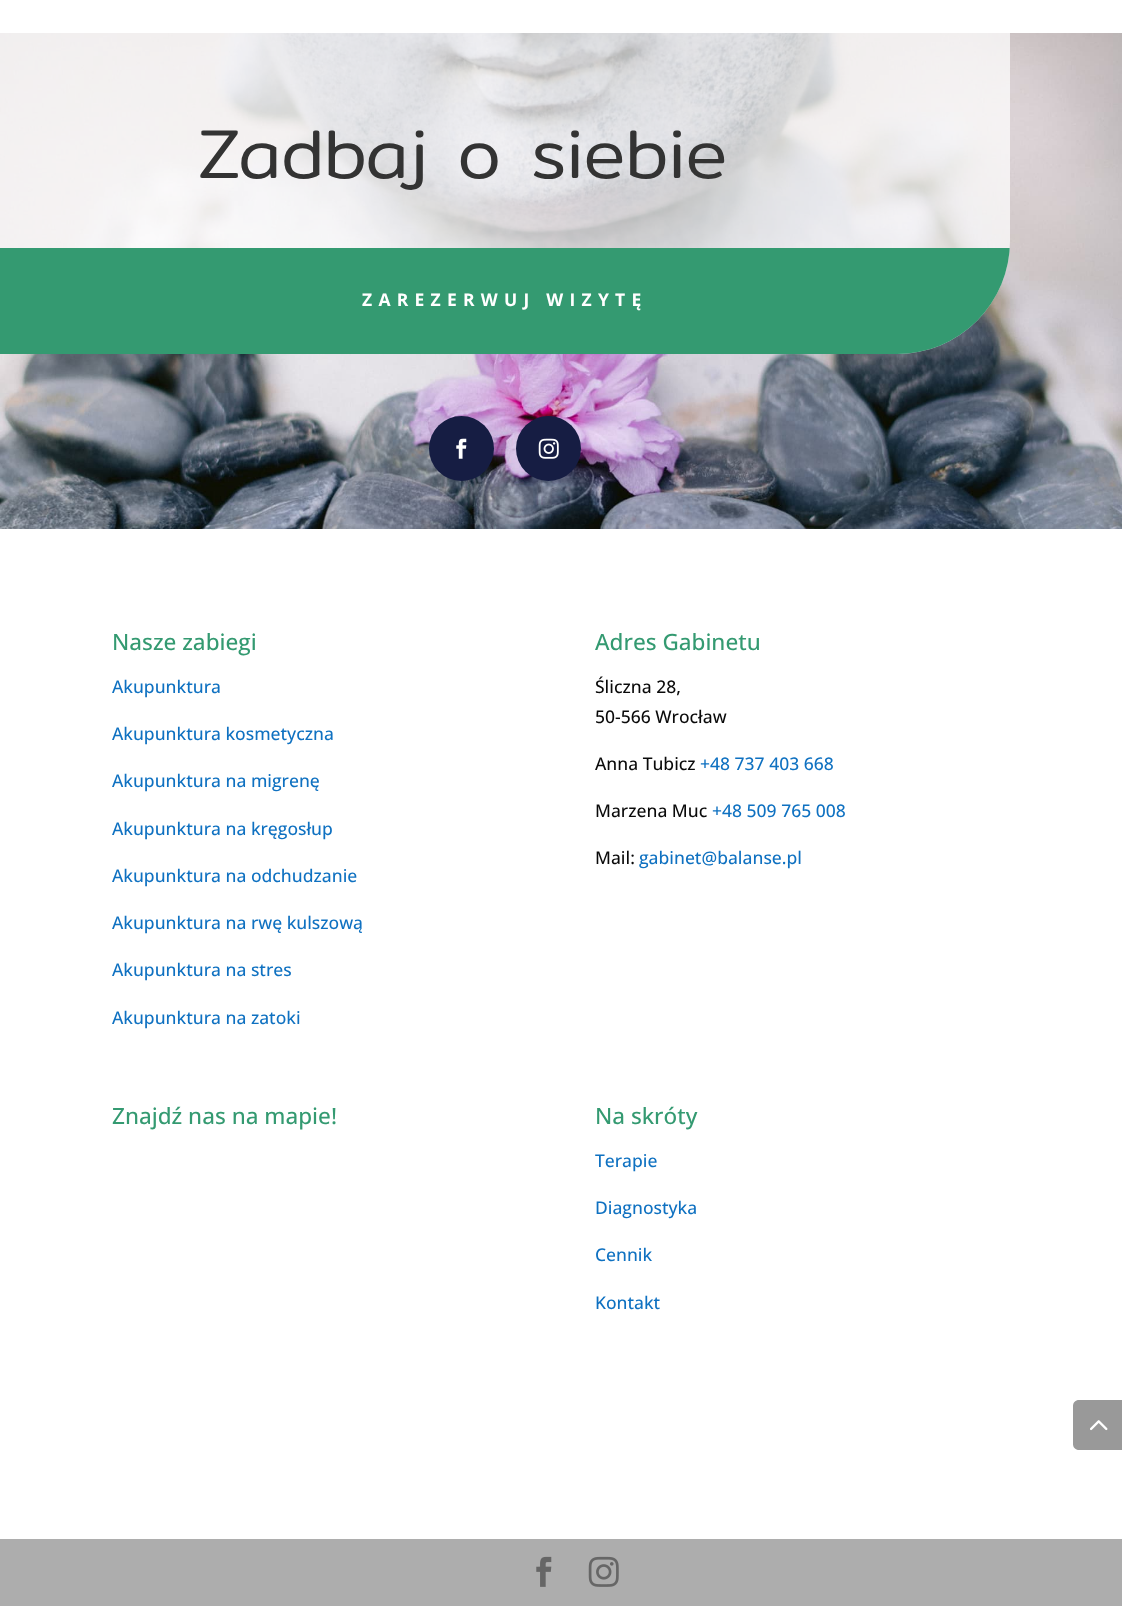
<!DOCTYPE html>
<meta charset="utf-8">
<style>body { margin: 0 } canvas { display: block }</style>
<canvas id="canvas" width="1122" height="1606"></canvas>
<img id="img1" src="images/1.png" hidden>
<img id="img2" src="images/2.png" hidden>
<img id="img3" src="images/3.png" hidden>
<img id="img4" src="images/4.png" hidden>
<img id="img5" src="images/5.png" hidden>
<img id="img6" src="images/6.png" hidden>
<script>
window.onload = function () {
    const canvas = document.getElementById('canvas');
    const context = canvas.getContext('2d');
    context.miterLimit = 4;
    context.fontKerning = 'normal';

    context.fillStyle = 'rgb(255, 255, 255)';
    context.fillRect(0, 0, 1122, 1606);
    context.drawImage(document.getElementById('img1'), 0, 33, 1122, 496);
    context.fillStyle = 'rgba(255, 255, 255, 0.71)';
    context.beginPath();
    context.roundRect(0, 33, 1010, 321, [0, 0, 113, 0]);
    context.fill();
    context.save();
    context.beginPath();
    context.roundRect(0, 33, 1010, 321, [0, 0, 113, 0]);
    context.clip();
    context.fillStyle = 'rgb(52, 154, 113)';
    context.fillRect(0, 248, 1010, 106);
    context.restore();
    context.fillStyle = 'rgb(22, 29, 67)';
    context.beginPath();
    context.arc(461.5, 448.5, 32.5, 0, 2 * Math.PI);
    context.fill();
    context.drawImage(document.getElementById('img2'), 456, 438, 11, 21);
    context.beginPath();
    context.arc(548.5, 448.5, 32.5, 0, 2 * Math.PI);
    context.fill();
    context.drawImage(document.getElementById('img3'), 538, 438, 21, 21);
    context.fillStyle = 'rgb(173, 173, 173)';
    context.fillRect(0, 1539, 1122, 67);
    context.drawImage(document.getElementById('img4'), 536, 1556, 16, 31);
    context.drawImage(document.getElementById('img5'), 588, 1556, 31, 31);
    context.fillStyle = 'rgb(153, 153, 153)';
    context.beginPath();
    context.moveTo(1079, 1400);
    context.lineTo(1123, 1400);
    context.lineTo(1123, 1450);
    context.lineTo(1079, 1450);
    context.bezierCurveTo(1075.5, 1450, 1073, 1447.5, 1073, 1444);
    context.lineTo(1073, 1406);
    context.bezierCurveTo(1073, 1402.5, 1075.5, 1400, 1079, 1400);
    context.closePath();
    context.fill();
    context.drawImage(document.getElementById('img6'), 1090, 1420, 18, 11);
    context.font = '300 70px Mitr';
    context.fillStyle = 'rgb(51, 51, 51)';
    context.fillText('Zadbaj o siebie', 197, 178);
    context.letterSpacing = '6.25px';
    context.font = 'bold 17.5px Open Sans';
    context.fillStyle = 'rgb(255, 255, 255)';
    context.fillText('ZAREZERWUJ WIZYTĘ', 362, 306);
    context.letterSpacing = '0px';
    context.font = '500 22.5px Open Sans';
    context.fillStyle = 'rgb(52, 154, 113)';
    context.fillText('Nasze zabiegi', 112, 650);
    context.font = '500 17.5px Open Sans';
    context.fillStyle = 'rgb(15, 113, 193)';
    context.fillText('Akupunktura', 112, 693);
    context.fillText('Akupunktura kosmetyczna', 112, 740);
    context.fillText('Akupunktura na migrenę', 112, 787);
    context.fillText('Akupunktura na kręgosłup', 112, 835);
    context.fillText('Akupunktura na odchudzanie', 112, 882);
    context.fillText('Akupunktura na rwę kulszową', 112, 929);
    context.fillText('Akupunktura na stres', 112, 976);
    context.fillText('Akupunktura na zatoki', 112, 1024);
    context.font = '500 22.5px Open Sans';
    context.fillStyle = 'rgb(52, 154, 113)';
    context.fillText('Adres Gabinetu', 595, 650);
    context.font = '500 17.5px Open Sans';
    context.fillStyle = 'rgb(10, 10, 10)';
    context.fillText('Śliczna 28,', 595, 693);
    context.fillText('50-566 Wrocław', 595, 723);
    context.fillText('Anna Tubicz', 595, 770);
    context.fillStyle = 'rgb(15, 113, 193)';
    context.fillText('+48 737 403 668', 700, 770);
    context.fillStyle = 'rgb(10, 10, 10)';
    context.fillText('Marzena Muc', 595, 817);
    context.fillStyle = 'rgb(15, 113, 193)';
    context.fillText('+48 509 765 008', 712, 817);
    context.fillStyle = 'rgb(10, 10, 10)';
    context.fillText('Mail:', 595, 864);
    context.fillStyle = 'rgb(15, 113, 193)';
    context.fillText('gabinet@balanse.pl', 639, 864);
    context.font = '500 22.5px Open Sans';
    context.fillStyle = 'rgb(52, 154, 113)';
    context.fillText('Znajdź nas na mapie!', 112, 1124);
    context.fillText('Na skróty', 595, 1124);
    context.font = '500 17.5px Open Sans';
    context.fillStyle = 'rgb(15, 113, 193)';
    context.fillText('Terapie', 595, 1167);
    context.fillText('Diagnostyka', 595, 1214);
    context.fillText('Cennik', 595, 1261);
    context.fillText('Kontakt', 595, 1309);
};
</script>
